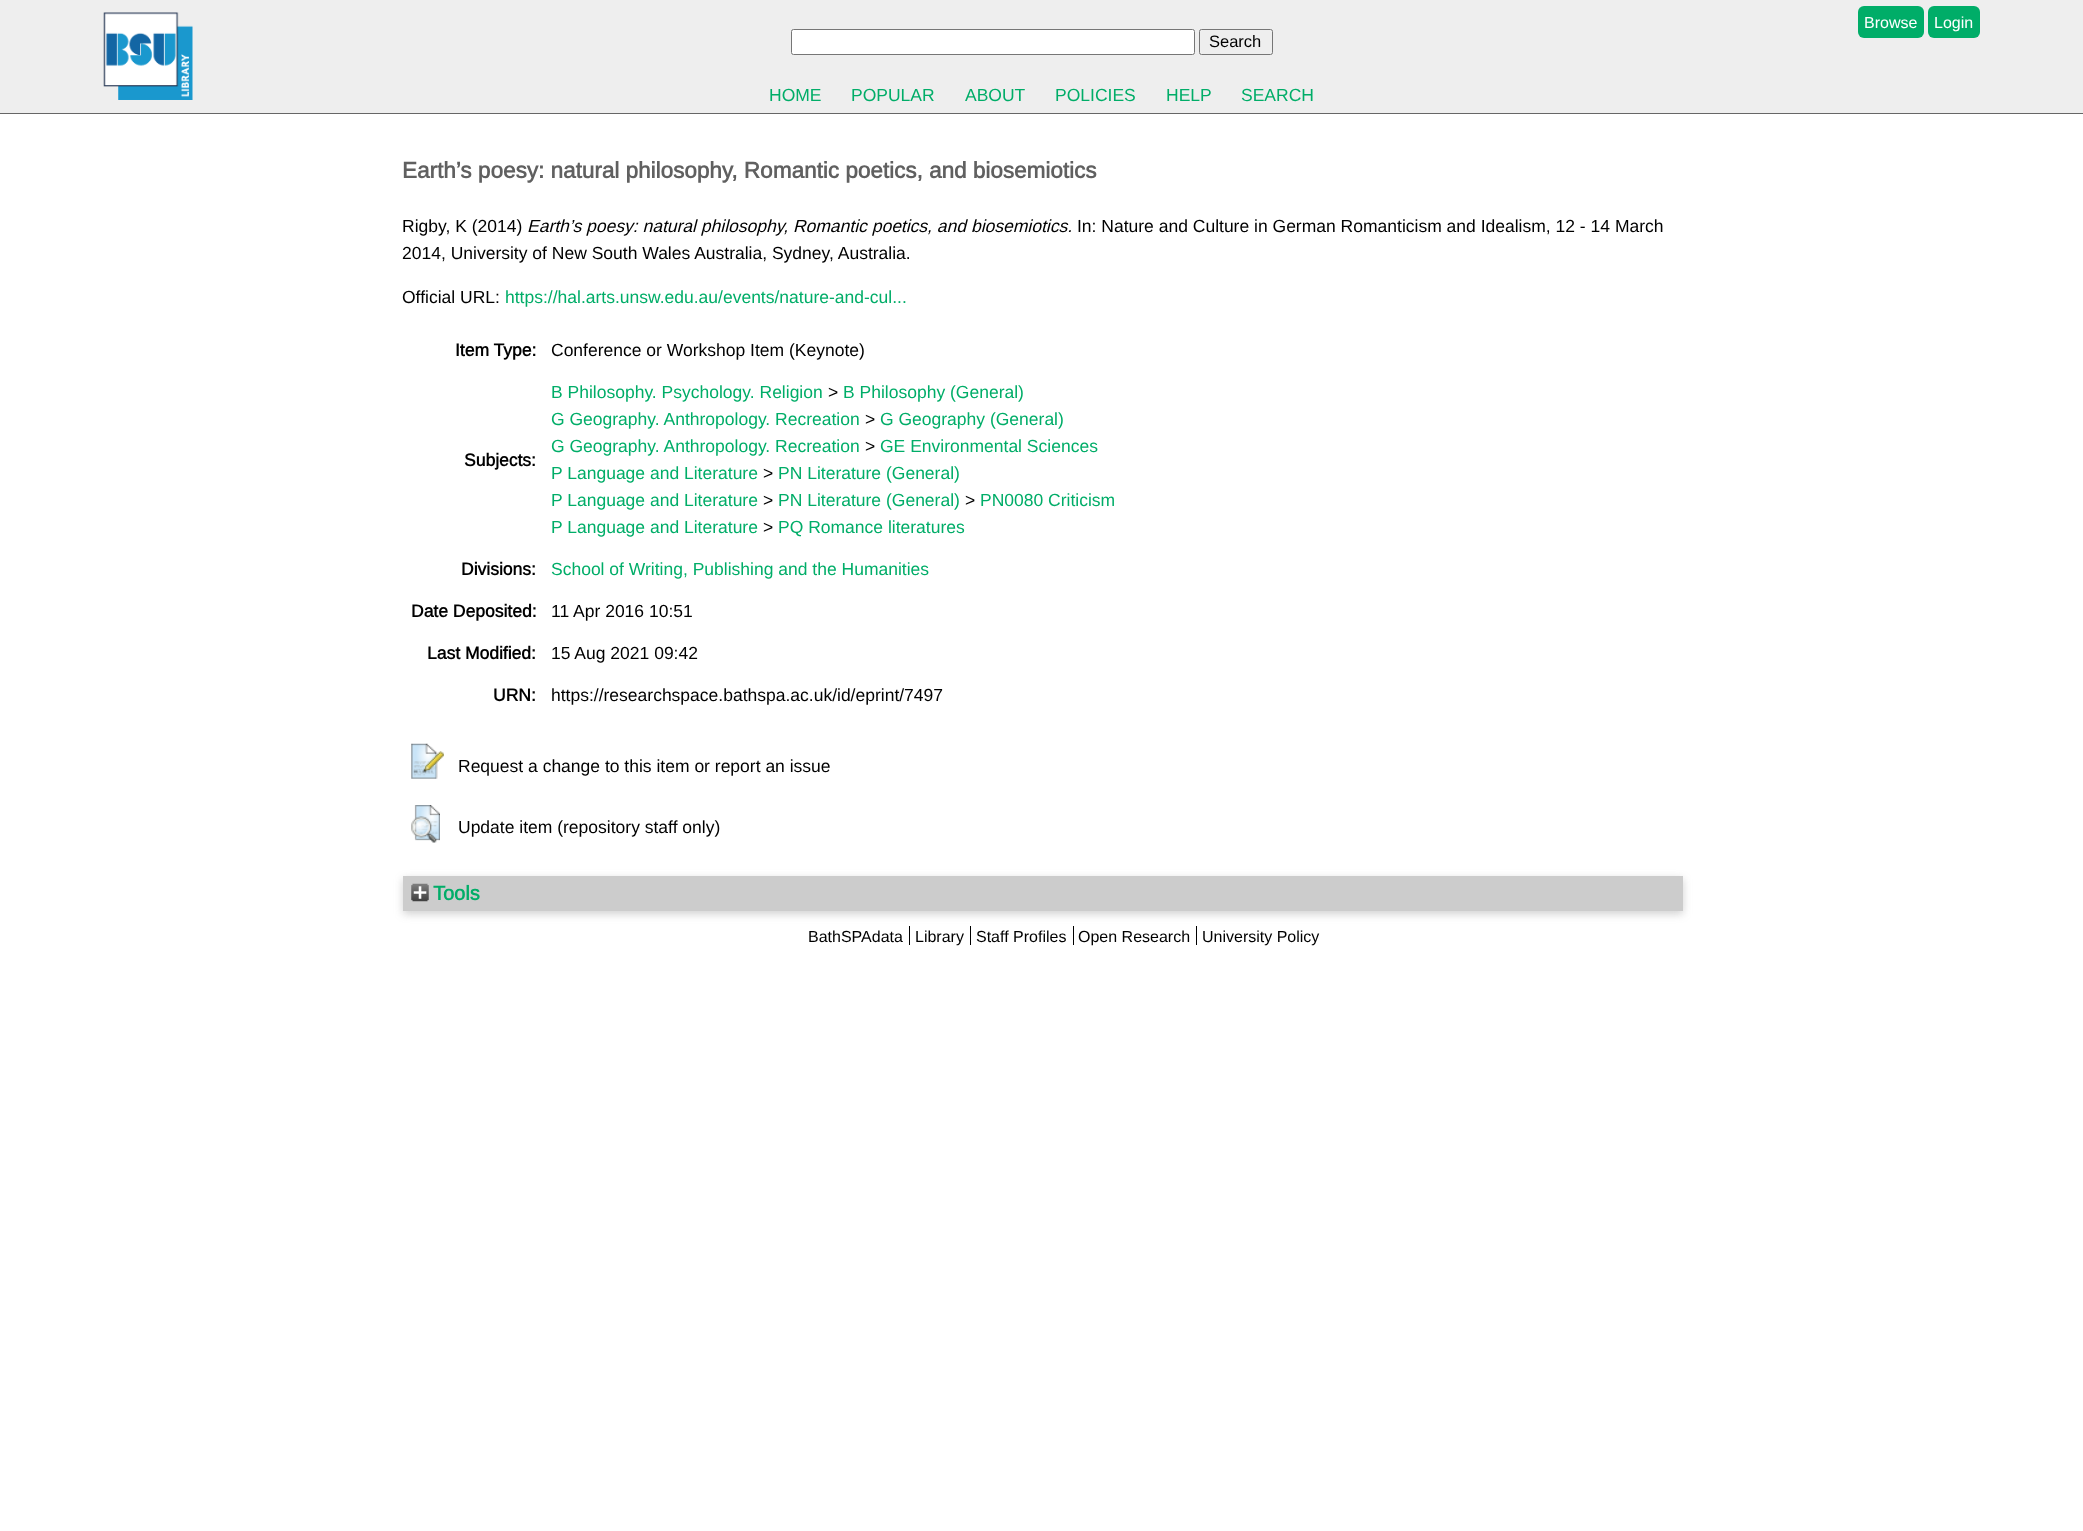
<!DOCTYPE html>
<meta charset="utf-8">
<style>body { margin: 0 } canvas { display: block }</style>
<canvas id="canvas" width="2083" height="1531"></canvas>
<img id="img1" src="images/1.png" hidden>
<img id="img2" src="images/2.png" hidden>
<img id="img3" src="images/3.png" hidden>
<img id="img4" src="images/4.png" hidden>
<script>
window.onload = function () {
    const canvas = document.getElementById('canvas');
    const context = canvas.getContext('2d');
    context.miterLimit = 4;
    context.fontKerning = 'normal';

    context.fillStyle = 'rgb(255, 255, 255)';
    context.fillRect(0, 0, 2083, 1531);
    context.fillStyle = 'rgb(238, 238, 238)';
    context.fillRect(0, 0, 2083, 113);
    context.fillStyle = 'rgb(102, 102, 102)';
    context.fillRect(0, 113, 2083, 1);
    context.drawImage(document.getElementById('img1'), 103, 12, 90, 88);
    context.fillStyle = 'rgb(0, 173, 104)';
    context.beginPath();
    context.roundRect(1858, 6, 66, 32, 6);
    context.fill();
    context.beginPath();
    context.roundRect(1928, 6, 52, 32, 6);
    context.fill();
    context.fillStyle = 'rgb(255, 255, 255)';
    context.beginPath();
    context.roundRect(791.5, 29.5, 403, 25, 2);
    context.fill();
    context.strokeStyle = 'rgb(118, 118, 118)';
    context.stroke();
    context.beginPath();
    context.roundRect(1199.5, 29.5, 73, 25, 2);
    context.stroke();
    context.drawImage(document.getElementById('img2'), 411, 743, 33, 36);
    context.drawImage(document.getElementById('img3'), 411, 805, 29, 38);
    context.fillStyle = 'rgba(100, 100, 100, 0.3)';
    context.filter = 'blur(4px)';
    context.beginPath();
    context.rect(403, 879, 1280, 35);
    context.fill();
    context.filter = 'none';
    context.fillStyle = 'rgb(204, 204, 204)';
    context.fillRect(403, 876, 1280, 35);
    context.drawImage(document.getElementById('img4'), 411, 883, 18, 19);
    context.fillStyle = 'rgb(0, 0, 0)';
    context.fillRect(909, 926, 1, 19);
    context.fillRect(970, 926, 1, 19);
    context.fillRect(1073, 926, 1, 19);
    context.fillRect(1196, 926, 1, 19);
    context.font = '16px Liberation Sans';
    context.fillStyle = 'rgb(255, 255, 255)';
    context.fillText('Browse', 1864, 28);
    context.fillText('Login', 1934, 28);
    context.font = '16.5px "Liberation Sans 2"';
    context.fillStyle = 'rgb(0, 0, 0)';
    context.fillText('Search', 1209, 47);
    context.font = '17.5px Liberation Sans';
    context.fillStyle = 'rgb(0, 173, 104)';
    context.fillText('HOME', 769, 101);
    context.fillText('POPULAR', 851, 101);
    context.fillText('ABOUT', 965, 101);
    context.fillText('POLICIES', 1055, 101);
    context.fillText('HELP', 1166, 101);
    context.fillText('SEARCH', 1241, 101);
    context.font = 'bold 22.5px Liberation Sans';
    context.fillStyle = 'rgb(96, 96, 96)';
    context.fillText('Earth’s poesy: natural philosophy, Romantic poetics, and biosemiotics', 402, 178);
    context.font = '17.5px Liberation Sans';
    context.fillStyle = 'rgb(0, 0, 0)';
    context.fillText('Rigby, K (2014)', 402, 232);
    context.font = 'italic 17.5px Liberation Sans';
    context.fillText('Earth’s poesy: natural philosophy, Romantic poetics, and biosemiotics.', 527, 232);
    context.font = '17.5px Liberation Sans';
    context.fillText('In: Nature and Culture in German Romanticism and Idealism, 12 - 14 March', 1077, 232);
    context.fillText('2014, University of New South Wales Australia, Sydney, Australia.', 402, 259);
    context.fillText('Official URL:', 402, 303);
    context.fillStyle = 'rgb(0, 173, 104)';
    context.fillText('https://hal.arts.unsw.edu.au/events/nature-and-cul...', 505, 303);
    context.font = 'bold 17.5px Liberation Sans';
    context.fillStyle = 'rgb(0, 0, 0)';
    context.fillText('Item Type:', 455, 356);
    context.font = '17.5px Liberation Sans';
    context.fillText('Conference or Workshop Item (Keynote)', 551, 356);
    context.font = 'bold 17.5px Liberation Sans';
    context.fillText('Subjects:', 464, 466);
    context.font = '17.5px Liberation Sans';
    context.fillStyle = 'rgb(0, 173, 104)';
    context.fillText('B Philosophy. Psychology. Religion', 551, 398);
    context.fillStyle = 'rgb(0, 0, 0)';
    context.fillText('>', 828, 398);
    context.fillStyle = 'rgb(0, 173, 104)';
    context.fillText('B Philosophy (General)', 843, 398);
    context.fillText('G Geography. Anthropology. Recreation', 551, 425);
    context.fillStyle = 'rgb(0, 0, 0)';
    context.fillText('>', 865, 425);
    context.fillStyle = 'rgb(0, 173, 104)';
    context.fillText('G Geography (General)', 880, 425);
    context.fillText('G Geography. Anthropology. Recreation', 551, 452);
    context.fillStyle = 'rgb(0, 0, 0)';
    context.fillText('>', 865, 452);
    context.fillStyle = 'rgb(0, 173, 104)';
    context.fillText('GE Environmental Sciences', 880, 452);
    context.fillText('P Language and Literature', 551, 479);
    context.fillStyle = 'rgb(0, 0, 0)';
    context.fillText('>', 763, 479);
    context.fillStyle = 'rgb(0, 173, 104)';
    context.fillText('PN Literature (General)', 778, 479);
    context.fillText('P Language and Literature', 551, 506);
    context.fillStyle = 'rgb(0, 0, 0)';
    context.fillText('>', 763, 506);
    context.fillStyle = 'rgb(0, 173, 104)';
    context.fillText('PN Literature (General)', 778, 506);
    context.fillStyle = 'rgb(0, 0, 0)';
    context.fillText('>', 965, 506);
    context.fillStyle = 'rgb(0, 173, 104)';
    context.fillText('PN0080 Criticism', 980, 506);
    context.fillText('P Language and Literature', 551, 533);
    context.fillStyle = 'rgb(0, 0, 0)';
    context.fillText('>', 763, 533);
    context.fillStyle = 'rgb(0, 173, 104)';
    context.fillText('PQ Romance literatures', 778, 533);
    context.font = 'bold 17.5px Liberation Sans';
    context.fillStyle = 'rgb(0, 0, 0)';
    context.fillText('Divisions:', 461, 575);
    context.font = '17.5px Liberation Sans';
    context.fillStyle = 'rgb(0, 173, 104)';
    context.fillText('School of Writing, Publishing and the Humanities', 551, 575);
    context.font = 'bold 17.5px Liberation Sans';
    context.fillStyle = 'rgb(0, 0, 0)';
    context.fillText('Date Deposited:', 411, 617);
    context.font = '17.5px Liberation Sans';
    context.fillText('11 Apr 2016 10:51', 551, 617);
    context.font = 'bold 17.5px Liberation Sans';
    context.fillText('Last Modified:', 427, 659);
    context.font = '17.5px Liberation Sans';
    context.fillText('15 Aug 2021 09:42', 551, 659);
    context.font = 'bold 17.5px Liberation Sans';
    context.fillText('URN:', 493, 701);
    context.font = '17.5px Liberation Sans';
    context.fillText('https://researchspace.bathspa.ac.uk/id/eprint/7497', 551, 701);
    context.fillText('Request a change to this item or report an issue', 458, 772);
    context.fillText('Update item (repository staff only)', 458, 833);
    context.font = 'bold 20px Liberation Sans';
    context.fillStyle = 'rgb(0, 173, 104)';
    context.fillText('Tools', 433, 900);
    context.font = '16px Liberation Sans';
    context.fillStyle = 'rgb(0, 0, 0)';
    context.fillText('BathSPAdata', 808, 942);
    context.fillText('Library', 915, 942);
    context.fillText('Staff Profiles', 976, 942);
    context.fillText('Open Research', 1078, 942);
    context.fillText('University Policy', 1202, 942);
};
</script>
